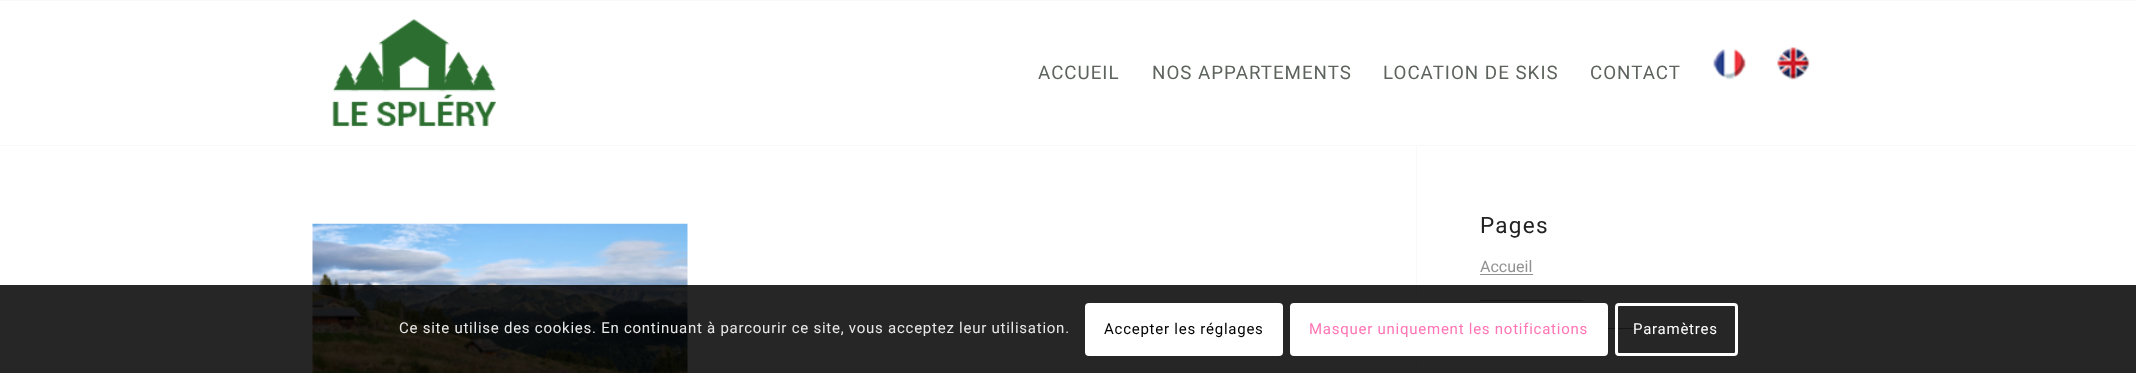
<!DOCTYPE html>
<meta charset="utf-8">
<style>body { margin: 0 } canvas { display: block }</style>
<canvas id="canvas" width="2136" height="373"></canvas>
<img id="img1" src="images/1.png" hidden>
<img id="img2" src="images/2.png" hidden>
<img id="img3" src="images/3.png" hidden>
<img id="img4" src="images/4.png" hidden>
<script>
window.onload = function () {
    const canvas = document.getElementById('canvas');
    const context = canvas.getContext('2d');
    context.miterLimit = 4;
    context.fontKerning = 'normal';

    context.fillStyle = 'rgb(255, 255, 255)';
    context.fillRect(0, 0, 2136, 373);
    context.fillStyle = 'rgb(248, 248, 248)';
    context.fillRect(0, 0, 2136, 1);
    context.fillRect(1416, 145, 1, 228);
    context.fillRect(0, 145, 2136, 1);
    context.drawImage(document.getElementById('img1'), 332, 19, 164, 108);
    context.drawImage(document.getElementById('img2'), 1713, 49, 33, 31);
    context.drawImage(document.getElementById('img3'), 1777, 47, 33, 33);
    context.drawImage(document.getElementById('img4'), 312, 223, 376, 150);
    context.fillStyle = 'rgb(145, 145, 145)';
    context.fillRect(1480, 274, 53, 1);
    context.fillRect(1480, 300, 103, 1);
    context.fillRect(1608, 328, 25, 1);
    context.fillStyle = 'rgba(0, 0, 0, 0.85)';
    context.fillRect(0, 285, 2136, 88);
    context.fillStyle = 'rgb(255, 255, 255)';
    context.beginPath();
    context.roundRect(1085, 303, 198, 53, 4);
    context.fill();
    context.beginPath();
    context.roundRect(1291.5, 304.5, 315, 50, 2.5);
    context.fill();
    context.strokeStyle = 'rgb(255, 255, 255)';
    context.lineWidth = 3;
    context.stroke();
    context.beginPath();
    context.roundRect(1616.5, 304.5, 120, 50, 2.5);
    context.stroke();
    context.letterSpacing = '1px';
    context.font = '18.75px Roboto';
    context.fillStyle = 'rgb(93, 99, 93)';
    context.fillText('ACCUEIL', 1038, 79);
    context.fillText('NOS APPARTEMENTS', 1152, 79);
    context.fillText('LOCATION DE SKIS', 1383, 79);
    context.fillText('CONTACT', 1590, 79);
    context.letterSpacing = '1.25px';
    context.font = '22.5px Roboto';
    context.fillStyle = 'rgb(34, 34, 34)';
    context.fillText('Pages', 1480, 233);
    context.letterSpacing = '0px';
    context.font = '16px Roboto';
    context.fillStyle = 'rgb(145, 145, 145)';
    context.fillText('Accueil', 1480, 272);
    context.letterSpacing = '0.75px';
    context.font = '15px Roboto';
    context.fillStyle = 'rgb(232, 232, 232)';
    context.fillText('Ce site utilise des cookies. En continuant à parcourir ce site, vous acceptez leur utilisation.', 399, 333);
    context.fillStyle = 'rgb(0, 0, 0)';
    context.fillText('Accepter les réglages', 1104, 334);
    context.fillStyle = 'rgb(255, 117, 181)';
    context.fillText('Masquer uniquement les notifications', 1309, 334);
    context.fillStyle = 'rgb(255, 255, 255)';
    context.fillText('Paramètres', 1633, 334);
};
</script>
